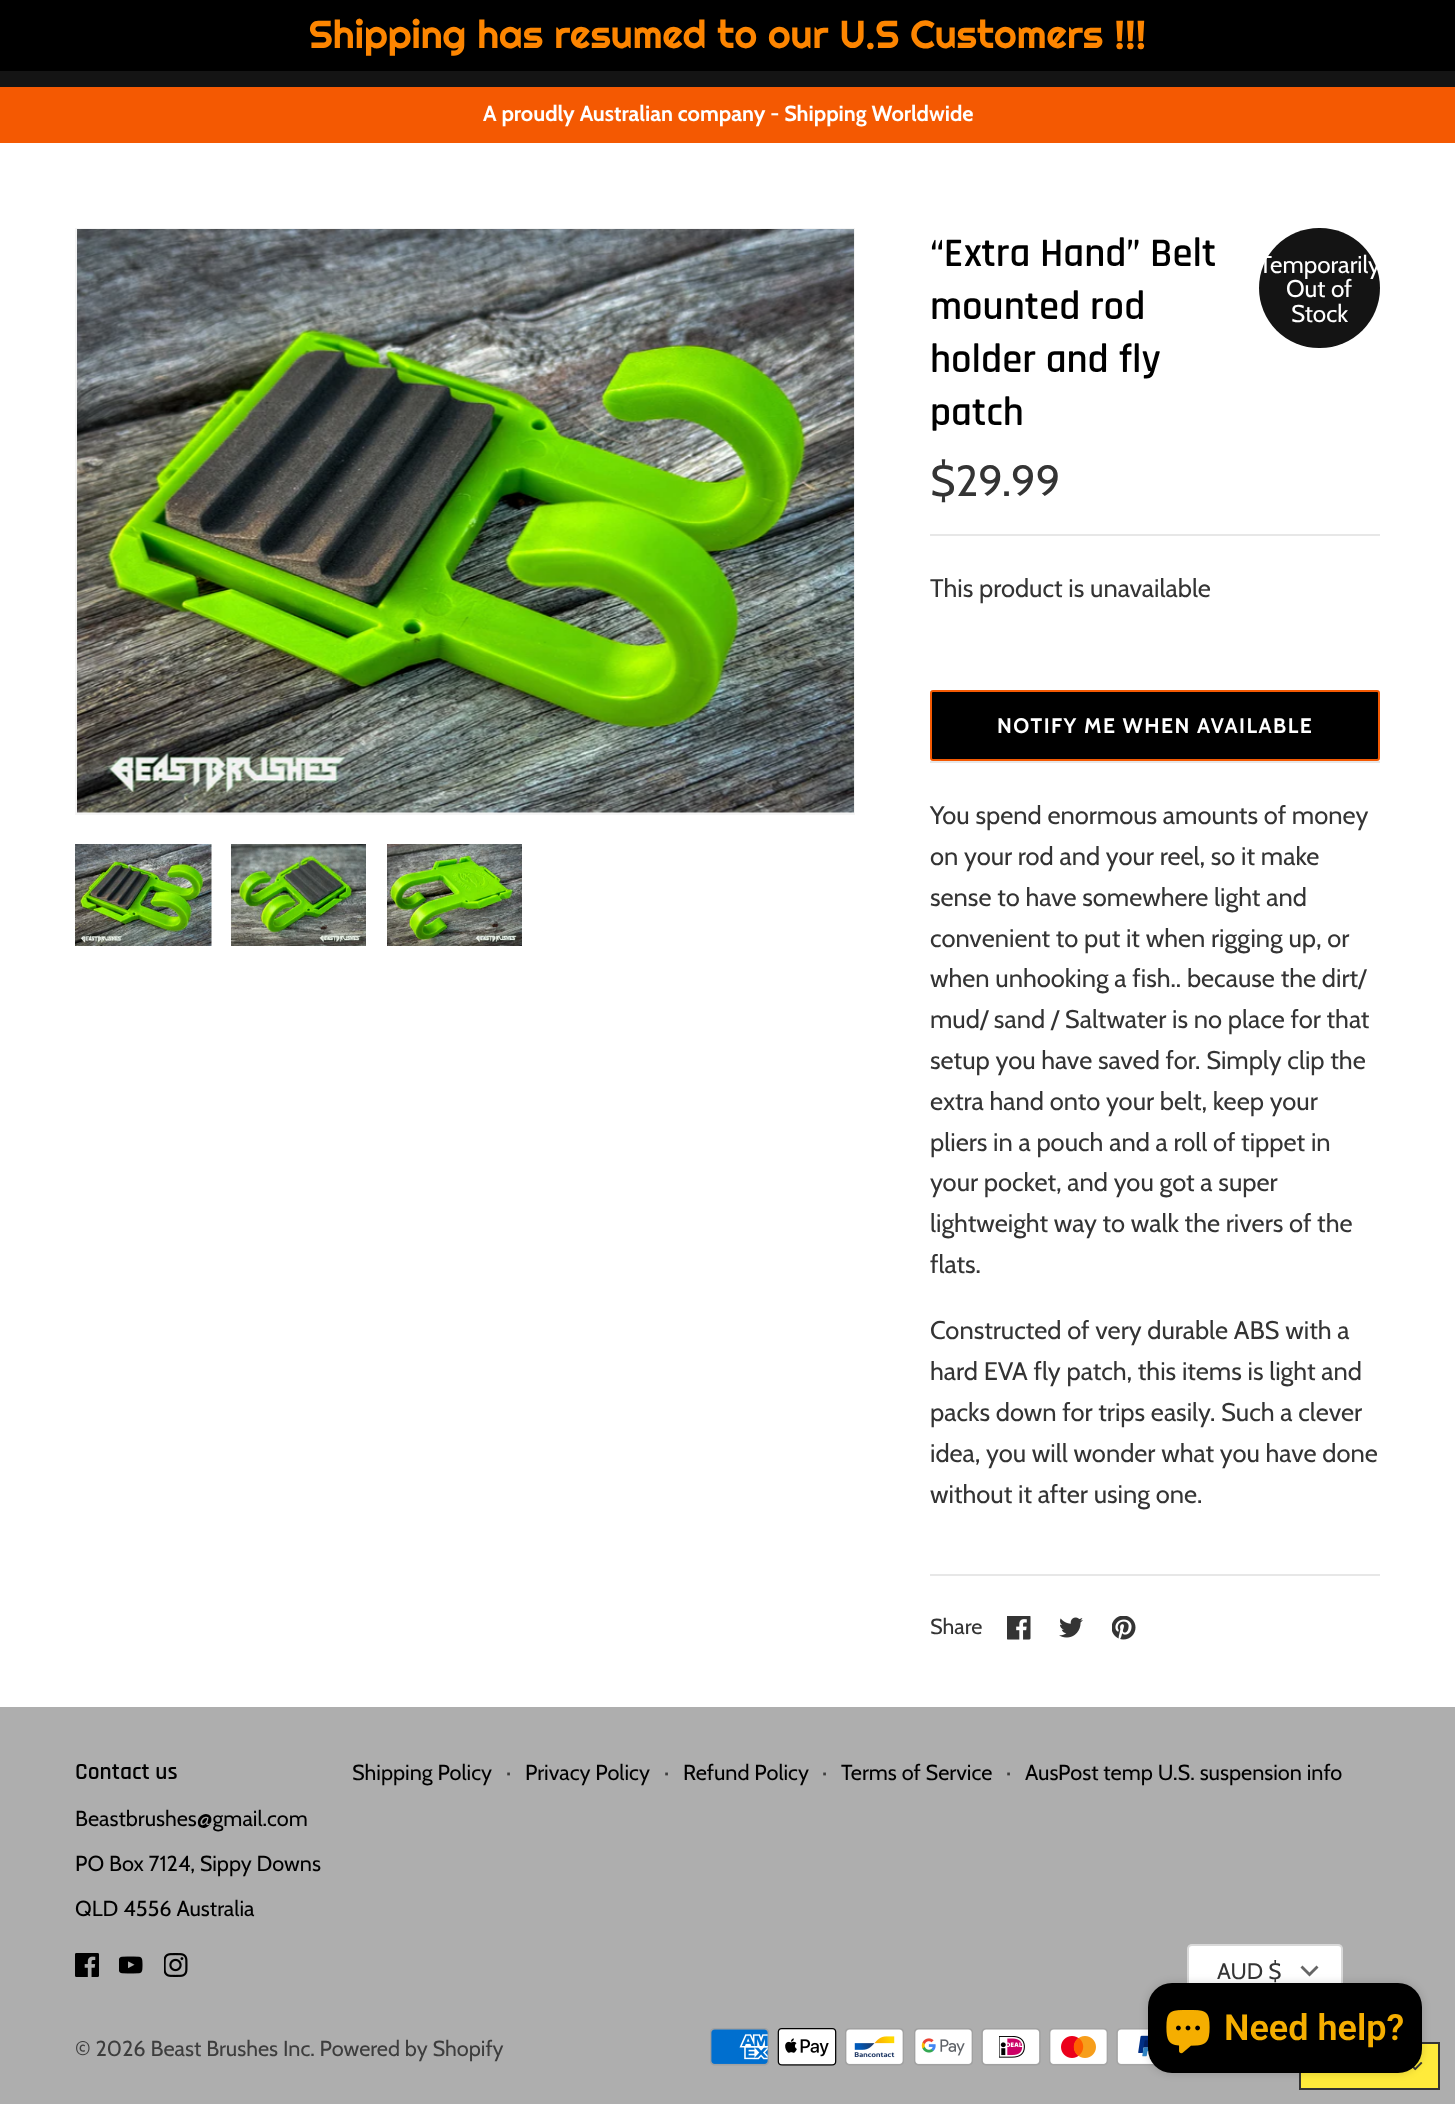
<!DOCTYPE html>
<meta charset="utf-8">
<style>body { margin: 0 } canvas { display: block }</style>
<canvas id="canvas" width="1455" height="2104"></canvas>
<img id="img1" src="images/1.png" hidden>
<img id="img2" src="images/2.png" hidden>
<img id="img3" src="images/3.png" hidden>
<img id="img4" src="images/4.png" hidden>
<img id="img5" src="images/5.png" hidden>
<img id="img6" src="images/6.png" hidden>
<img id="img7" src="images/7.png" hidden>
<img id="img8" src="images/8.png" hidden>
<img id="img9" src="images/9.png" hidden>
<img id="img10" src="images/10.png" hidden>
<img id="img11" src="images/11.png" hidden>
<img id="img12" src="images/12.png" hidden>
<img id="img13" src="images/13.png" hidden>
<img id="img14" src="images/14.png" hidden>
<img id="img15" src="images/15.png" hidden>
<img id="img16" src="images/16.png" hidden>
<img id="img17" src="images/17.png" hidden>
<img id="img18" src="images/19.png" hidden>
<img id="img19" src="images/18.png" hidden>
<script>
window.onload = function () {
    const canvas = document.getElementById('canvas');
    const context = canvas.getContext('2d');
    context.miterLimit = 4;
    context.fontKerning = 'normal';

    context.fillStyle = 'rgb(255, 255, 255)';
    context.fillRect(0, 0, 1455, 2104);
    context.fillStyle = 'rgb(0, 0, 0)';
    context.fillRect(0, 0, 1455, 71);
    context.fillStyle = 'rgb(20, 20, 20)';
    context.fillRect(0, 71, 1455, 16);
    context.fillStyle = 'rgb(244, 89, 2)';
    context.fillRect(0, 87, 1455, 56);
    context.strokeStyle = 'rgb(245, 245, 245)';
    context.lineWidth = 2;
    context.strokeRect(76, 229, 778, 585);
    context.drawImage(document.getElementById('img1'), 77, 229, 777, 584);
    context.drawImage(document.getElementById('img2'), 75, 844, 137, 102);
    context.drawImage(document.getElementById('img3'), 231, 844, 135, 102);
    context.drawImage(document.getElementById('img4'), 387, 844, 135, 102);
    context.fillStyle = 'rgb(20, 20, 20)';
    context.beginPath();
    context.roundRect(1259, 228, 121, 120, 60);
    context.fill();
    context.fillStyle = 'rgb(231, 231, 231)';
    context.fillRect(930, 534, 450, 2);
    context.fillStyle = 'rgb(0, 0, 0)';
    context.beginPath();
    context.roundRect(931, 691, 448, 69, 2);
    context.fill();
    context.strokeStyle = 'rgb(244, 89, 2)';
    context.stroke();
    context.fillStyle = 'rgb(231, 231, 231)';
    context.fillRect(930, 761, 450, 2);
    context.fillRect(930, 1574, 450, 2);
    context.drawImage(document.getElementById('img5'), 1007, 1616, 24, 24);
    context.drawImage(document.getElementById('img6'), 1059, 1617, 24, 21);
    context.drawImage(document.getElementById('img7'), 1112, 1616, 24, 24);
    context.fillStyle = 'rgb(174, 174, 174)';
    context.fillRect(0, 1707, 1455, 397);
    context.drawImage(document.getElementById('img8'), 75, 1953, 24, 24);
    context.drawImage(document.getElementById('img9'), 119, 1956, 24, 18);
    context.drawImage(document.getElementById('img10'), 164, 1953, 24, 24);
    context.fillStyle = 'rgb(255, 255, 255)';
    context.beginPath();
    context.roundRect(1187, 1944, 156, 54, 5);
    context.fill();
    context.beginPath();
    context.roundRect(1188, 1945, 154, 52, 4);
    context.strokeStyle = 'rgba(0, 0, 0, 0.15)';
    context.stroke();
    context.fillStyle = 'rgb(102, 102, 102)';
    context.beginPath();
    context.moveTo(1302.5, 1965.5);
    context.lineTo(1309.5, 1972.5);
    context.lineTo(1316.5, 1965.5);
    context.lineTo(1318.5, 1967.5);
    context.lineTo(1309.5, 1976.5);
    context.lineTo(1300.5, 1967.5);
    context.closePath();
    context.fill();
    context.drawImage(document.getElementById('img11'), 710, 2028, 59, 38);
    context.drawImage(document.getElementById('img12'), 777, 2028, 60, 38);
    context.drawImage(document.getElementById('img13'), 845, 2028, 59, 38);
    context.drawImage(document.getElementById('img14'), 914, 2028, 59, 38);
    context.drawImage(document.getElementById('img15'), 981, 2028, 60, 38);
    context.drawImage(document.getElementById('img16'), 1049, 2028, 59, 38);
    context.drawImage(document.getElementById('img17'), 1116, 2028, 39, 38);
    context.fillStyle = 'rgb(255, 235, 59)';
    context.beginPath();
    context.rect(1300, 2043, 139, 46);
    context.fill();
    context.strokeStyle = 'rgb(52, 52, 52)';
    context.stroke();
    context.drawImage(document.getElementById('img18'), 1412, 2062, 11, 9);
    context.fillStyle = 'rgba(0, 0, 0, 0.15)';
    context.filter = 'blur(4px)';
    context.beginPath();
    context.roundRect(1148, 1983, 274, 90, 24);
    context.fill();
    context.filter = 'none';
    context.fillStyle = 'rgb(0, 0, 0)';
    context.beginPath();
    context.roundRect(1148, 1983, 274, 90, 24);
    context.fill();
    context.drawImage(document.getElementById('img19'), 1166, 2010, 44, 44);
    context.font = '39px Righteous';
    context.fillStyle = 'rgb(253, 133, 0)';
    context.fillText('Shipping has resumed to our U.S Customers !!!', 309, 48);
    context.font = 'bold 21.7px Cabin';
    context.fillStyle = 'rgb(255, 255, 255)';
    context.fillText('A proudly Australian company - Shipping Worldwide', 483, 121);
    context.font = '600 40.75px Rajdhani';
    context.fillStyle = 'rgb(0, 0, 0)';
    context.fillText('“Extra Hand” Belt', 930, 266);
    context.fillText('mounted rod', 930, 319);
    context.fillText('holder and fly', 930, 372);
    context.fillText('patch', 930, 425);
    context.font = '24.25px Cabin';
    context.fillStyle = 'rgb(255, 255, 255)';
    context.fillText('Temporarily', 1259, 273);
    context.fillText('Out of', 1286, 297);
    context.fillText('Stock', 1291, 322);
    context.font = '43.5px Cabin';
    context.fillStyle = 'rgb(52, 52, 52)';
    context.fillText('$29.99', 930, 496);
    context.font = '25.5px Cabin';
    context.fillText('This product is unavailable', 930, 597);
    context.letterSpacing = '1.5px';
    context.font = 'bold 21px Cabin';
    context.fillStyle = 'rgb(255, 255, 255)';
    context.fillText('NOTIFY ME WHEN AVAILABLE', 997, 733);
    context.letterSpacing = '0px';
    context.font = '25.5px Cabin';
    context.fillStyle = 'rgb(52, 52, 52)';
    context.fillText('You spend enormous amounts of money', 930, 824);
    context.fillText('on your rod and your reel, so it make', 930, 865);
    context.fillText('sense to have somewhere light and', 930, 906);
    context.fillText('convenient to put it when rigging up, or', 930, 947);
    context.fillText('when unhooking a fish.. because the dirt/', 930, 987);
    context.fillText('mud/ sand / Saltwater is no place for that', 930, 1028);
    context.fillText('setup you have saved for. Simply clip the', 930, 1069);
    context.fillText('extra hand onto your belt, keep your', 930, 1110);
    context.fillText('pliers in a pouch and a roll of tippet in', 930, 1151);
    context.fillText('your pocket, and you got a super', 930, 1191);
    context.fillText('lightweight way to walk the rivers of the', 930, 1232);
    context.fillText('flats.', 930, 1273);
    context.fillText('Constructed of very durable ABS with a', 930, 1339);
    context.fillText('hard EVA fly patch, this items is light and', 930, 1380);
    context.fillText('packs down for trips easily. Such a clever', 930, 1421);
    context.fillText('idea, you will wonder what you have done', 930, 1462);
    context.fillText('without it after using one.', 930, 1503);
    context.font = '21.7px Cabin';
    context.fillText('Share', 930, 1634);
    context.font = '600 23.5px Rajdhani';
    context.fillStyle = 'rgb(0, 0, 0)';
    context.fillText('Contact us', 75, 1779);
    context.font = '21.7px Cabin';
    context.fillText('Beastbrushes@gmail.com', 75, 1826);
    context.fillText('PO Box 7124, Sippy Downs', 75, 1871);
    context.fillText('QLD 4556 Australia', 75, 1916);
    context.fillText('Shipping Policy', 352, 1780);
    context.fillStyle = 'rgb(61, 61, 61)';
    context.fillText('·', 506, 1780);
    context.fillStyle = 'rgb(0, 0, 0)';
    context.fillText('Privacy Policy', 525, 1780);
    context.fillStyle = 'rgb(61, 61, 61)';
    context.fillText('·', 664, 1780);
    context.fillStyle = 'rgb(0, 0, 0)';
    context.fillText('Refund Policy', 683, 1780);
    context.fillStyle = 'rgb(61, 61, 61)';
    context.fillText('·', 822, 1780);
    context.fillStyle = 'rgb(0, 0, 0)';
    context.fillText('Terms of Service', 841, 1780);
    context.fillStyle = 'rgb(61, 61, 61)';
    context.fillText('·', 1006, 1780);
    context.fillStyle = 'rgb(0, 0, 0)';
    context.fillText('AusPost temp U.S. suspension info', 1025, 1780);
    context.font = '22.5px Cabin';
    context.fillStyle = 'rgb(52, 52, 52)';
    context.fillText('AUD $', 1217, 1979);
    context.font = '21.7px Cabin';
    context.fillStyle = 'rgb(61, 61, 61)';
    context.fillText('© 2026 Beast Brushes Inc. Powered by Shopify', 75, 2056);
    context.font = '600 36px Roboto';
    context.fillStyle = 'rgb(245, 174, 0)';
    context.fillText('Need help?', 1224, 2040);
};
</script>
